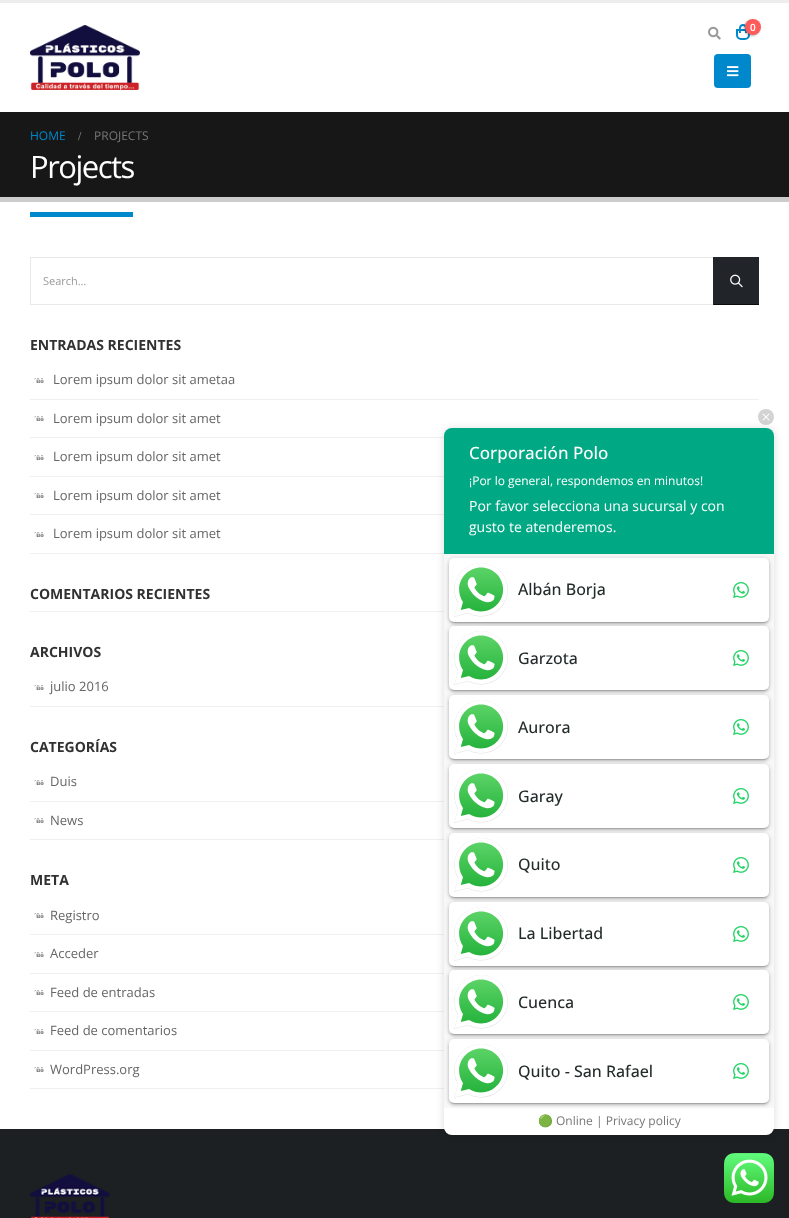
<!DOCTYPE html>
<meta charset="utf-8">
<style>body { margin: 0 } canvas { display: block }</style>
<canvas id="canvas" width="789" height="1218"></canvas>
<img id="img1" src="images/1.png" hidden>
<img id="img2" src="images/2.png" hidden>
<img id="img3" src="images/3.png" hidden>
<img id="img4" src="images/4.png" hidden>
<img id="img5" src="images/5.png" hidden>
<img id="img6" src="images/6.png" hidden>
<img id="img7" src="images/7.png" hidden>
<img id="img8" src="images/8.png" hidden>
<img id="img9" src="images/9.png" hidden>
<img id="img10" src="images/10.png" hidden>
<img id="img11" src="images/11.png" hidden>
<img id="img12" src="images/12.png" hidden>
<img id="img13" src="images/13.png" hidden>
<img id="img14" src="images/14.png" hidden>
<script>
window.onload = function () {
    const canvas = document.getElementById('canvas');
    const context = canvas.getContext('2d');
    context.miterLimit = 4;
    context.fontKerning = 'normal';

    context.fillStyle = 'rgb(255, 255, 255)';
    context.fillRect(0, 0, 789, 1218);
    context.fillStyle = 'rgb(237, 237, 237)';
    context.fillRect(0, 0, 789, 3);
    context.drawImage(document.getElementById('img1'), 30, 25, 110, 65);
    context.drawImage(document.getElementById('img2'), 708, 26, 13, 14);
    context.beginPath();
    context.roundRect(737, 30, 12, 9, [0, 0, 4, 4]);
    context.strokeStyle = 'rgb(0, 136, 204)';
    context.lineWidth = 2;
    context.stroke();
    context.fillStyle = 'rgb(0, 136, 204)';
    context.beginPath();
    context.moveTo(743, 24);
    context.bezierCurveTo(748, 24, 747, 30, 747, 33);
    context.lineTo(739, 33);
    context.bezierCurveTo(739, 30, 738, 24, 743, 24);
    context.closePath();
    context.moveTo(743, 26);
    context.bezierCurveTo(746, 26, 745, 31, 745, 33);
    context.lineTo(741, 33);
    context.bezierCurveTo(741, 31, 740, 26, 743, 26);
    context.closePath();
    context.fill('evenodd');
    context.fillStyle = 'rgba(0, 0, 0, 0.3)';
    context.filter = 'blur(1px)';
    context.beginPath();
    context.roundRect(744, 20, 16, 16, 8);
    context.fill();
    context.filter = 'none';
    context.fillStyle = 'rgb(255, 91, 91)';
    context.beginPath();
    context.arc(753, 27, 8, 0, 2 * Math.PI);
    context.fill();
    context.fillStyle = 'rgb(0, 136, 204)';
    context.beginPath();
    context.roundRect(714, 54, 37, 34, 4);
    context.fill();
    context.drawImage(document.getElementById('img3'), 727, 66, 12, 11);
    context.fillStyle = 'rgb(23, 23, 23)';
    context.fillRect(0, 112, 789, 85);
    context.fillStyle = 'rgb(204, 204, 204)';
    context.fillRect(0, 197, 789, 5);
    context.fillStyle = 'rgb(0, 136, 204)';
    context.fillRect(30, 212, 103, 5);
    context.strokeStyle = 'rgb(232, 232, 232)';
    context.lineWidth = 1;
    context.strokeRect(30.5, 257.5, 683, 47);
    context.fillStyle = 'rgb(33, 37, 41)';
    context.fillRect(714, 257, 45, 47);
    context.fillStyle = 'rgb(11, 12, 13)';
    context.fillRect(713, 304, 46, 1);
    context.fillStyle = 'rgb(33, 37, 41)';
    context.fillRect(713, 257, 1, 48);
    context.drawImage(document.getElementById('img4'), 730, 274, 13, 14);
    context.fillStyle = 'rgb(240, 240, 240)';
    context.fillRect(30, 553, 414, 1);
    context.fillRect(30, 399, 729, 1);
    context.fillRect(30, 437, 414, 1);
    context.fillRect(30, 476, 414, 1);
    context.fillRect(30, 514, 414, 1);
    context.fillRect(30, 611, 414, 1);
    context.fillRect(30, 706, 414, 1);
    context.fillRect(30, 839, 414, 1);
    context.fillRect(30, 801, 414, 1);
    context.fillRect(30, 1088, 414, 1);
    context.fillRect(30, 934, 414, 1);
    context.fillRect(30, 973, 414, 1);
    context.fillRect(30, 1011, 414, 1);
    context.fillRect(30, 1050, 414, 1);
    context.fillStyle = 'rgb(28, 32, 35)';
    context.fillRect(0, 1129, 789, 89);
    context.drawImage(document.getElementById('img5'), 30, 1174, 80, 44);
    context.fillStyle = 'rgb(211, 211, 211)';
    context.beginPath();
    context.arc(766, 417, 8, 0, 2 * Math.PI);
    context.fill();
    context.drawImage(document.getElementById('img6'), 762, 413, 8, 8);
    context.fillStyle = 'rgba(0, 0, 0, 0.14)';
    context.filter = 'blur(4.5px)';
    context.beginPath();
    context.roundRect(444, 429, 330, 707, 8);
    context.fill();
    context.filter = 'none';
    context.fillStyle = 'rgb(0, 168, 132)';
    context.beginPath();
    context.roundRect(444, 428, 330, 127, [8, 8, 0, 0]);
    context.fill();
    context.fillStyle = 'rgb(255, 255, 255)';
    context.beginPath();
    context.roundRect(444, 1107, 330, 28, [0, 0, 8, 8]);
    context.fill();
    context.fillStyle = 'rgb(248, 248, 248)';
    context.fillRect(444, 554, 330, 554);
    context.fillStyle = 'rgba(0, 0, 0, 0.2)';
    context.filter = 'blur(2.5px)';
    context.beginPath();
    context.roundRect(449, 559, 320, 64, 5);
    context.fill();
    context.filter = 'none';
    context.fillStyle = 'rgba(0, 0, 0, 0.12)';
    context.filter = 'blur(0.5px)';
    context.beginPath();
    context.roundRect(451, 563, 316, 60, 3);
    context.fill();
    context.filter = 'none';
    context.fillStyle = 'rgba(0, 0, 0, 0.14)';
    context.filter = 'blur(1px)';
    context.beginPath();
    context.roundRect(449, 560, 320, 64, 5);
    context.fill();
    context.filter = 'none';
    context.fillStyle = 'rgb(255, 255, 255)';
    context.beginPath();
    context.roundRect(449, 558, 320, 64, 5);
    context.fill();
    context.drawImage(document.getElementById('img7'), 454, 563, 54, 54);
    context.drawImage(document.getElementById('img8'), 733, 582, 16, 16);
    context.fillStyle = 'rgba(0, 0, 0, 0.2)';
    context.filter = 'blur(2.5px)';
    context.beginPath();
    context.roundRect(449, 627, 320, 64, 5);
    context.fill();
    context.filter = 'none';
    context.fillStyle = 'rgba(0, 0, 0, 0.12)';
    context.filter = 'blur(0.5px)';
    context.beginPath();
    context.roundRect(451, 631, 316, 60, 3);
    context.fill();
    context.filter = 'none';
    context.fillStyle = 'rgba(0, 0, 0, 0.14)';
    context.filter = 'blur(1px)';
    context.beginPath();
    context.roundRect(449, 628, 320, 64, 5);
    context.fill();
    context.filter = 'none';
    context.fillStyle = 'rgb(255, 255, 255)';
    context.beginPath();
    context.roundRect(449, 626, 320, 64, 5);
    context.fill();
    context.drawImage(document.getElementById('img9'), 454, 631, 54, 54);
    context.drawImage(document.getElementById('img8'), 733, 650, 16, 16);
    context.fillStyle = 'rgba(0, 0, 0, 0.2)';
    context.filter = 'blur(2.5px)';
    context.beginPath();
    context.roundRect(449, 696, 320, 64, 5);
    context.fill();
    context.filter = 'none';
    context.fillStyle = 'rgba(0, 0, 0, 0.12)';
    context.filter = 'blur(0.5px)';
    context.beginPath();
    context.roundRect(451, 700, 316, 60, 3);
    context.fill();
    context.filter = 'none';
    context.fillStyle = 'rgba(0, 0, 0, 0.14)';
    context.filter = 'blur(1px)';
    context.beginPath();
    context.roundRect(449, 697, 320, 64, 5);
    context.fill();
    context.filter = 'none';
    context.fillStyle = 'rgb(255, 255, 255)';
    context.beginPath();
    context.roundRect(449, 695, 320, 64, 5);
    context.fill();
    context.drawImage(document.getElementById('img10'), 454, 700, 54, 54);
    context.drawImage(document.getElementById('img8'), 733, 719, 16, 16);
    context.fillStyle = 'rgba(0, 0, 0, 0.2)';
    context.filter = 'blur(2.5px)';
    context.beginPath();
    context.roundRect(449, 765, 320, 64, 5);
    context.fill();
    context.filter = 'none';
    context.fillStyle = 'rgba(0, 0, 0, 0.12)';
    context.filter = 'blur(0.5px)';
    context.beginPath();
    context.roundRect(451, 769, 316, 60, 3);
    context.fill();
    context.filter = 'none';
    context.fillStyle = 'rgba(0, 0, 0, 0.14)';
    context.filter = 'blur(1px)';
    context.beginPath();
    context.roundRect(449, 766, 320, 64, 5);
    context.fill();
    context.filter = 'none';
    context.fillStyle = 'rgb(255, 255, 255)';
    context.beginPath();
    context.roundRect(449, 764, 320, 64, 5);
    context.fill();
    context.drawImage(document.getElementById('img11'), 454, 769, 54, 54);
    context.drawImage(document.getElementById('img8'), 733, 788, 16, 16);
    context.fillStyle = 'rgba(0, 0, 0, 0.2)';
    context.filter = 'blur(2.5px)';
    context.beginPath();
    context.roundRect(449, 834, 320, 64, 5);
    context.fill();
    context.filter = 'none';
    context.fillStyle = 'rgba(0, 0, 0, 0.12)';
    context.filter = 'blur(0.5px)';
    context.beginPath();
    context.roundRect(451, 838, 316, 60, 3);
    context.fill();
    context.filter = 'none';
    context.fillStyle = 'rgba(0, 0, 0, 0.14)';
    context.filter = 'blur(1px)';
    context.beginPath();
    context.roundRect(449, 835, 320, 64, 5);
    context.fill();
    context.filter = 'none';
    context.fillStyle = 'rgb(255, 255, 255)';
    context.beginPath();
    context.roundRect(449, 833, 320, 64, 5);
    context.fill();
    context.drawImage(document.getElementById('img12'), 454, 838, 54, 54);
    context.drawImage(document.getElementById('img8'), 733, 857, 16, 16);
    context.fillStyle = 'rgba(0, 0, 0, 0.2)';
    context.filter = 'blur(2.5px)';
    context.beginPath();
    context.roundRect(449, 903, 320, 64, 5);
    context.fill();
    context.filter = 'none';
    context.fillStyle = 'rgba(0, 0, 0, 0.12)';
    context.filter = 'blur(0.5px)';
    context.beginPath();
    context.roundRect(451, 907, 316, 60, 3);
    context.fill();
    context.filter = 'none';
    context.fillStyle = 'rgba(0, 0, 0, 0.14)';
    context.filter = 'blur(1px)';
    context.beginPath();
    context.roundRect(449, 904, 320, 64, 5);
    context.fill();
    context.filter = 'none';
    context.fillStyle = 'rgb(255, 255, 255)';
    context.beginPath();
    context.roundRect(449, 902, 320, 64, 5);
    context.fill();
    context.drawImage(document.getElementById('img7'), 454, 907, 54, 54);
    context.drawImage(document.getElementById('img8'), 733, 926, 16, 16);
    context.fillStyle = 'rgba(0, 0, 0, 0.2)';
    context.filter = 'blur(2.5px)';
    context.beginPath();
    context.roundRect(449, 971, 320, 64, 5);
    context.fill();
    context.filter = 'none';
    context.fillStyle = 'rgba(0, 0, 0, 0.12)';
    context.filter = 'blur(0.5px)';
    context.beginPath();
    context.roundRect(451, 975, 316, 60, 3);
    context.fill();
    context.filter = 'none';
    context.fillStyle = 'rgba(0, 0, 0, 0.14)';
    context.filter = 'blur(1px)';
    context.beginPath();
    context.roundRect(449, 972, 320, 64, 5);
    context.fill();
    context.filter = 'none';
    context.fillStyle = 'rgb(255, 255, 255)';
    context.beginPath();
    context.roundRect(449, 970, 320, 64, 5);
    context.fill();
    context.drawImage(document.getElementById('img9'), 454, 975, 54, 54);
    context.drawImage(document.getElementById('img8'), 733, 994, 16, 16);
    context.fillStyle = 'rgba(0, 0, 0, 0.2)';
    context.filter = 'blur(2.5px)';
    context.beginPath();
    context.roundRect(449, 1040, 320, 64, 5);
    context.fill();
    context.filter = 'none';
    context.fillStyle = 'rgba(0, 0, 0, 0.12)';
    context.filter = 'blur(0.5px)';
    context.beginPath();
    context.roundRect(451, 1044, 316, 60, 3);
    context.fill();
    context.filter = 'none';
    context.fillStyle = 'rgba(0, 0, 0, 0.14)';
    context.filter = 'blur(1px)';
    context.beginPath();
    context.roundRect(449, 1041, 320, 64, 5);
    context.fill();
    context.filter = 'none';
    context.fillStyle = 'rgb(255, 255, 255)';
    context.beginPath();
    context.roundRect(449, 1039, 320, 64, 5);
    context.fill();
    context.drawImage(document.getElementById('img13'), 454, 1044, 54, 54);
    context.drawImage(document.getElementById('img8'), 733, 1063, 16, 16);
    context.drawImage(document.getElementById('img14'), 724, 1153, 50, 50);
    context.font = '600 10px Open Sans';
    context.fillText('0', 750, 31);
    context.font = '12px Open Sans';
    context.fillStyle = 'rgb(0, 136, 204)';
    context.fillText('HOME', 30, 140);
    context.font = 'bold 12px Liberation Serif';
    context.fillStyle = 'rgb(119, 119, 119)';
    context.fillText('/', 78, 140);
    context.font = '12px Open Sans';
    context.fillText('PROJECTS', 94, 140);
    context.letterSpacing = '-1.5px';
    context.font = '31px Open Sans';
    context.fillStyle = 'rgb(255, 255, 255)';
    context.fillText('Projects', 30, 178);
    context.letterSpacing = '0px';
    context.font = '11px Open Sans';
    context.fillStyle = 'rgb(153, 153, 153)';
    context.fillText('Search…', 43, 285);
    context.font = 'bold 14px Open Sans';
    context.fillStyle = 'rgb(49, 49, 49)';
    context.fillText('ENTRADAS RECIENTES', 30, 350);
    context.font = 'bold 7px Liberation Serif';
    context.fillStyle = 'rgb(102, 102, 102)';
    context.fillText('´üö', 34, 383);
    context.font = '13px Open Sans';
    context.fillText('Lorem ipsum dolor sit ametaa', 53, 384);
    context.font = 'bold 7px Liberation Serif';
    context.fillText('´üö', 34, 421);
    context.font = '13px Open Sans';
    context.fillText('Lorem ipsum dolor sit amet', 53, 423);
    context.font = 'bold 7px Liberation Serif';
    context.fillText('´üö', 34, 460);
    context.font = '13px Open Sans';
    context.fillText('Lorem ipsum dolor sit amet', 53, 461);
    context.font = 'bold 7px Liberation Serif';
    context.fillText('´üö', 34, 498);
    context.font = '13px Open Sans';
    context.fillText('Lorem ipsum dolor sit amet', 53, 500);
    context.font = 'bold 7px Liberation Serif';
    context.fillText('´üö', 34, 537);
    context.font = '13px Open Sans';
    context.fillText('Lorem ipsum dolor sit amet', 53, 538);
    context.font = 'bold 14px Open Sans';
    context.fillStyle = 'rgb(49, 49, 49)';
    context.fillText('COMENTARIOS RECIENTES', 30, 599);
    context.fillText('ARCHIVOS', 30, 657);
    context.font = 'bold 7px Liberation Serif';
    context.fillStyle = 'rgb(102, 102, 102)';
    context.fillText('´üö', 34, 690);
    context.font = '13px Open Sans';
    context.fillText('julio 2016', 50, 691);
    context.font = 'bold 14px Open Sans';
    context.fillStyle = 'rgb(49, 49, 49)';
    context.fillText('CATEGORÍAS', 30, 752);
    context.font = 'bold 7px Liberation Serif';
    context.fillStyle = 'rgb(102, 102, 102)';
    context.fillText('´üö', 34, 785);
    context.font = '13px Open Sans';
    context.fillText('Duis', 50, 786);
    context.font = 'bold 7px Liberation Serif';
    context.fillText('´üö', 34, 823);
    context.font = '13px Open Sans';
    context.fillText('News', 50, 825);
    context.font = 'bold 14px Open Sans';
    context.fillStyle = 'rgb(49, 49, 49)';
    context.fillText('META', 30, 885);
    context.font = 'bold 7px Liberation Serif';
    context.fillStyle = 'rgb(102, 102, 102)';
    context.fillText('´üö', 34, 918);
    context.font = '13px Open Sans';
    context.fillText('Registro', 50, 920);
    context.font = 'bold 7px Liberation Serif';
    context.fillText('´üö', 34, 957);
    context.font = '13px Open Sans';
    context.fillText('Acceder', 50, 958);
    context.font = 'bold 7px Liberation Serif';
    context.fillText('´üö', 34, 995);
    context.font = '13px Open Sans';
    context.fillText('Feed de entradas', 50, 997);
    context.font = 'bold 7px Liberation Serif';
    context.fillText('´üö', 34, 1034);
    context.font = '13px Open Sans';
    context.fillText('Feed de comentarios', 50, 1035);
    context.font = 'bold 7px Liberation Serif';
    context.fillText('´üö', 34, 1072);
    context.font = '13px Open Sans';
    context.fillText('WordPress.org', 50, 1074);
    context.font = '500 17px Open Sans';
    context.fillStyle = 'rgb(255, 255, 255)';
    context.fillText('Corporación Polo', 469, 459);
    context.font = '12px Open Sans';
    context.fillText('¡Por lo general, respondemos en minutos!', 469, 485);
    context.font = '14px Open Sans';
    context.fillText('Por favor selecciona una sucursal y con', 469, 511);
    context.fillText('gusto te atenderemos.', 469, 532);
    context.font = '500 16px Open Sans';
    context.fillStyle = 'rgb(35, 43, 43)';
    context.fillText('Albán Borja', 518, 595);
    context.fillText('Garzota', 518, 664);
    context.fillText('Aurora', 518, 733);
    context.fillText('Garay', 518, 802);
    context.fillText('Quito', 518, 870);
    context.fillText('La Libertad', 518, 939);
    context.fillText('Cuenca', 518, 1008);
    context.fillText('Quito - San Rafael', 518, 1077);
    context.font = '12px Noto Color Emoji';
    context.fillStyle = 'rgb(119, 119, 119)';
    context.fillText('🟢', 538, 1125);
    context.font = '12px Open Sans';
    context.fillText('Online | Privacy policy', 556, 1125);
};
</script>
